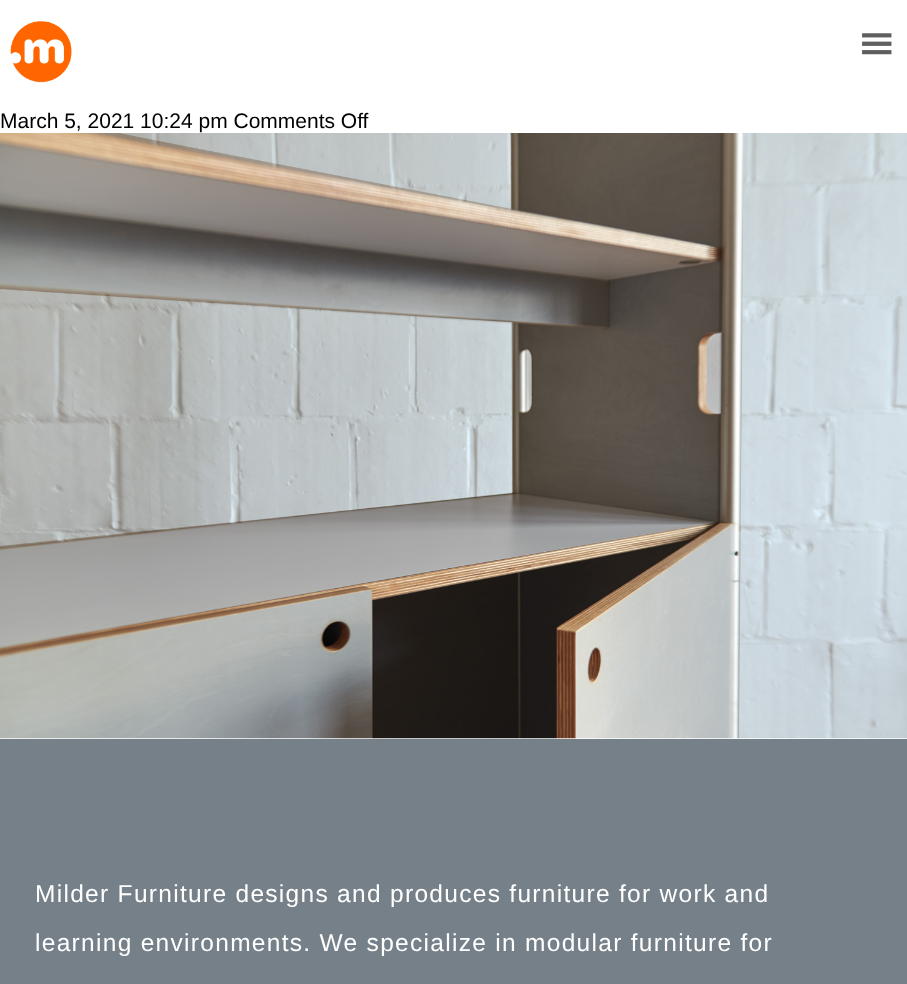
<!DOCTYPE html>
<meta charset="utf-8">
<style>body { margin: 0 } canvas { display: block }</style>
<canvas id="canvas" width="907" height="984"></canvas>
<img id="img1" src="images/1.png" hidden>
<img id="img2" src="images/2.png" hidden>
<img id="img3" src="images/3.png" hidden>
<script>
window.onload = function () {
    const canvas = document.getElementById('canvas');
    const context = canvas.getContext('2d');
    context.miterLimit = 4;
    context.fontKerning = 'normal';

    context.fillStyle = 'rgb(255, 255, 255)';
    context.fillRect(0, 0, 907, 984);
    context.drawImage(document.getElementById('img1'), 10, 21, 62, 62);
    context.drawImage(document.getElementById('img2'), 862, 33, 30, 22);
    context.drawImage(document.getElementById('img3'), 0, 133, 907, 606);
    context.fillStyle = 'rgb(118, 128, 136)';
    context.fillRect(0, 739, 907, 245);
    context.font = '21px Liberation Sans';
    context.fillStyle = 'rgb(0, 0, 0)';
    context.fillText('March 5, 2021 10:24 pm Comments Off', 0, 128);
    context.letterSpacing = '1.3px';
    context.font = '24.5px Liberation Sans';
    context.fillStyle = 'rgb(255, 255, 255)';
    context.fillText('Milder Furniture designs and produces furniture for work and', 35, 902);
    context.fillText('learning environments. We specialize in modular furniture for', 35, 951);
};
</script>
